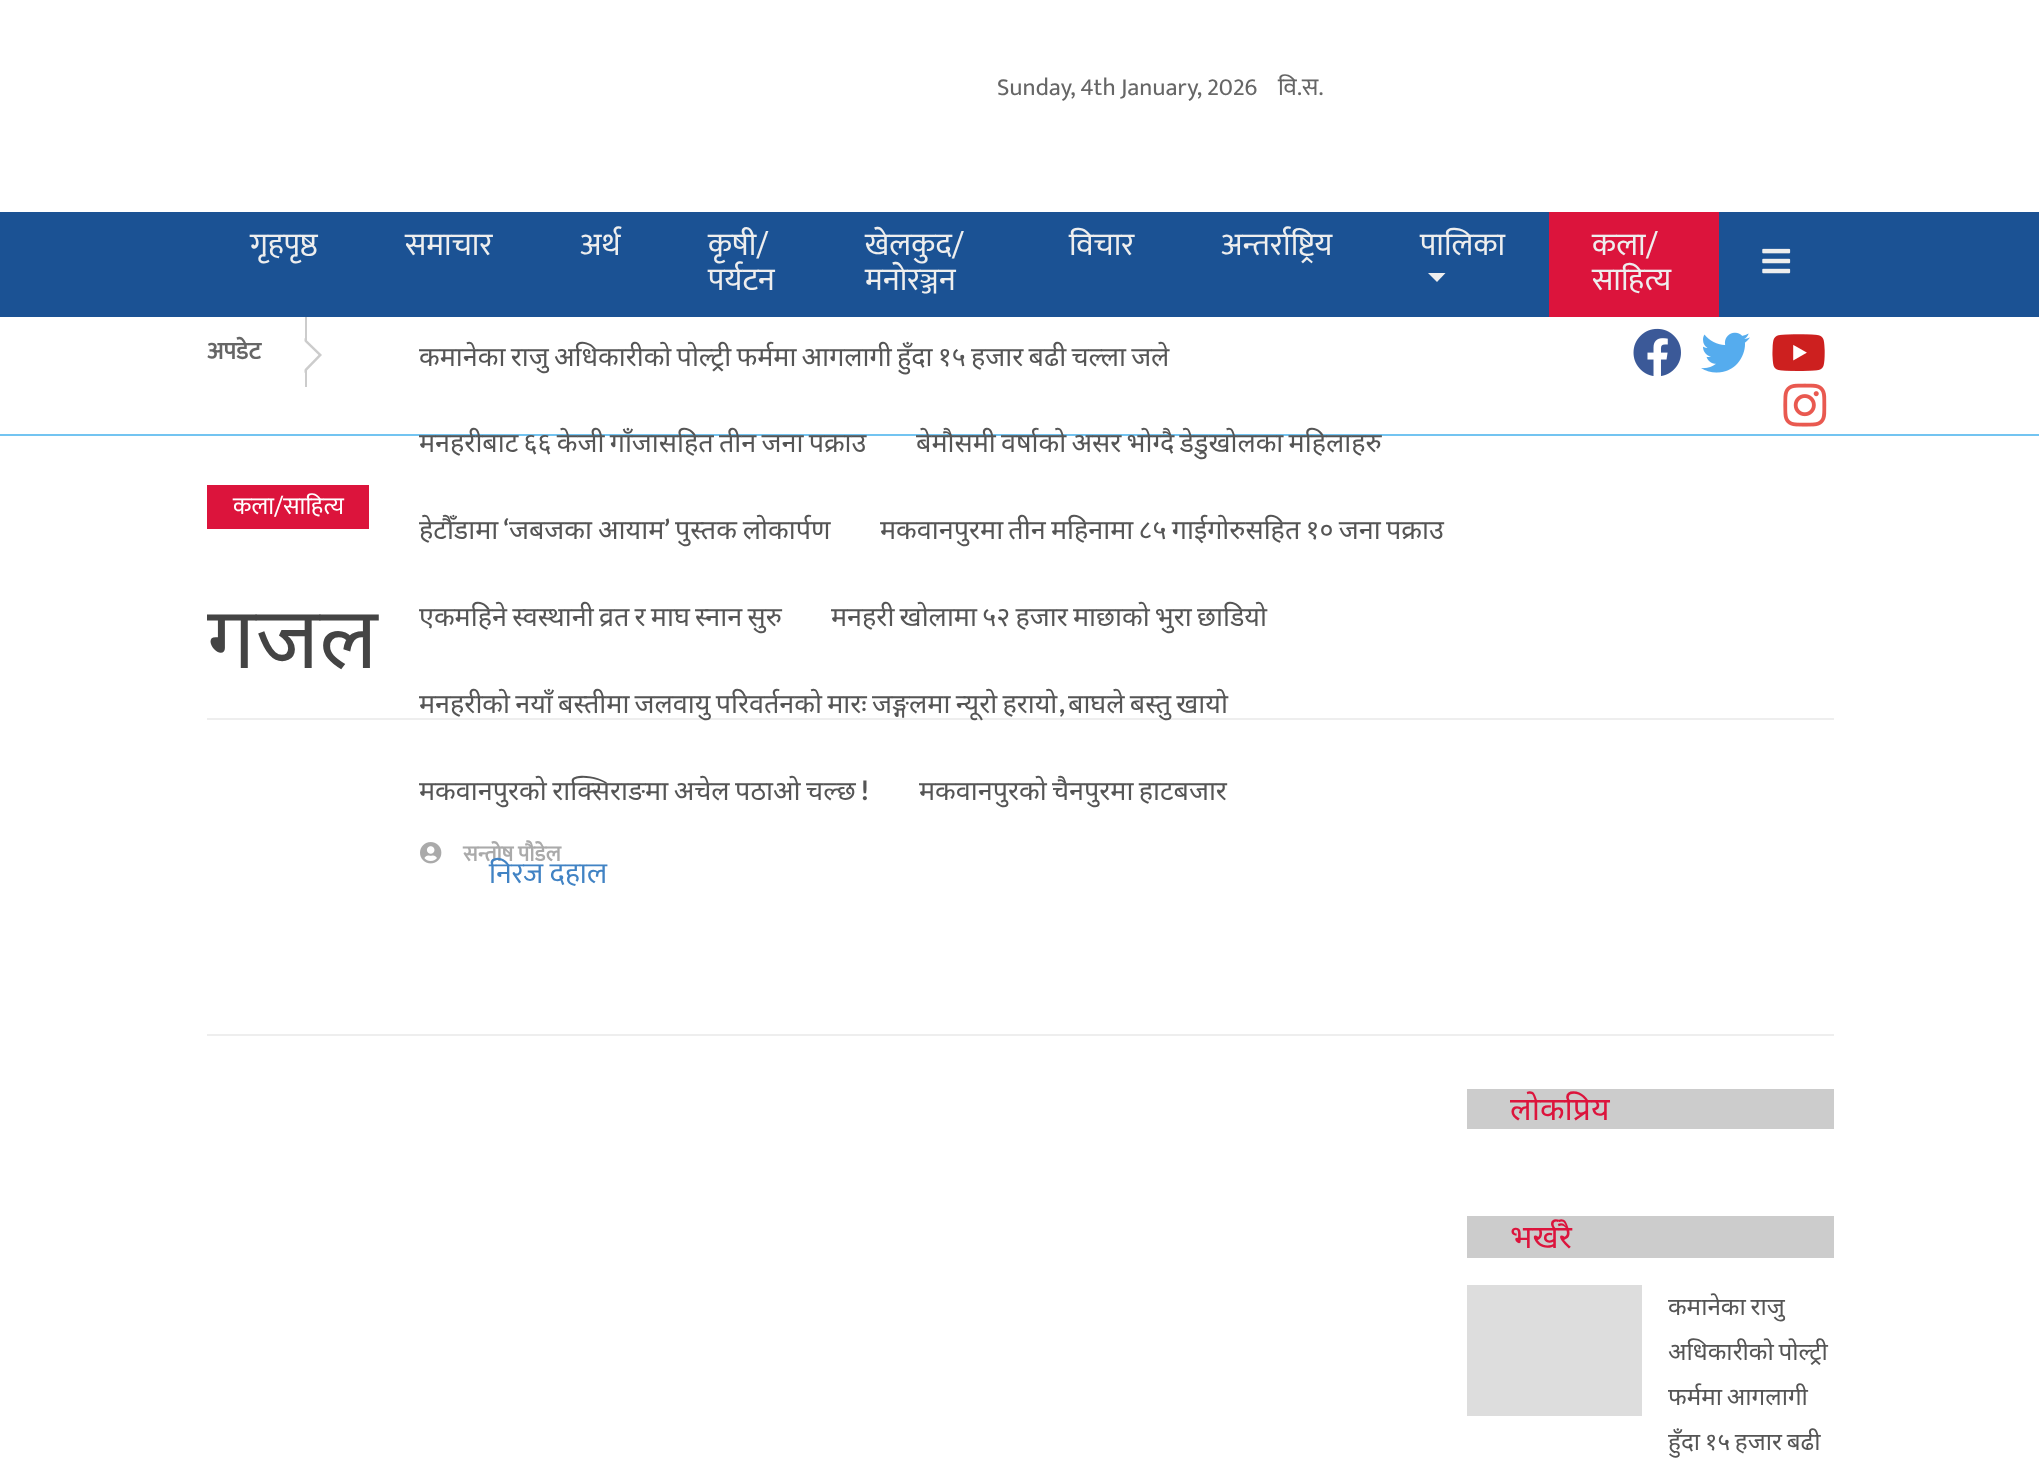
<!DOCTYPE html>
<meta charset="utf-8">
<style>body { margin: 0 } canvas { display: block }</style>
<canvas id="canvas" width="2039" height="1482"></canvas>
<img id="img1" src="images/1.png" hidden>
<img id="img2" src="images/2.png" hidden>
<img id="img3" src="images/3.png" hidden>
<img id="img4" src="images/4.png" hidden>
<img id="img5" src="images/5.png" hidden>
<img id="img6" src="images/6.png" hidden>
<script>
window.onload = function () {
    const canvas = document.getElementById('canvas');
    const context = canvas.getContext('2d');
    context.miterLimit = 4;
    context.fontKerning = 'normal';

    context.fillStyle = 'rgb(255, 255, 255)';
    context.fillRect(0, 0, 2039, 1482);
    context.fillStyle = 'rgb(27, 82, 148)';
    context.fillRect(0, 212, 2039, 105);
    context.fillStyle = 'rgb(238, 238, 238)';
    context.beginPath();
    context.moveTo(1428, 273);
    context.lineTo(1445.5, 273);
    context.lineTo(1437, 282);
    context.closePath();
    context.fill();
    context.fillStyle = 'rgb(220, 20, 60)';
    context.fillRect(1549, 212, 170, 105);
    context.drawImage(document.getElementById('img1'), 1762, 248, 29, 26);
    context.fillStyle = 'rgb(115, 196, 241)';
    context.fillRect(0, 434, 2039, 2);
    context.fillStyle = 'rgb(204, 204, 204)';
    context.fillRect(305, 317, 2, 70);
    context.beginPath();
    context.moveTo(304.5, 373);
    context.lineTo(304.5, 338);
    context.lineTo(322, 355);
    context.closePath();
    context.fill();
    context.fillStyle = 'rgb(255, 255, 255)';
    context.beginPath();
    context.moveTo(301, 373);
    context.lineTo(301, 338);
    context.lineTo(318.5, 355);
    context.closePath();
    context.fill();
    context.drawImage(document.getElementById('img2'), 420, 842, 22, 22);
    context.drawImage(document.getElementById('img3'), 1633, 328, 48, 48);
    context.drawImage(document.getElementById('img4'), 1701, 332, 49, 41);
    context.drawImage(document.getElementById('img5'), 1772, 334, 53, 37);
    context.drawImage(document.getElementById('img6'), 1783, 383, 44, 44);
    context.fillStyle = 'rgb(220, 20, 60)';
    context.fillRect(207, 485, 162, 44);
    context.fillStyle = 'rgb(238, 238, 238)';
    context.fillRect(207, 718, 1627, 2);
    context.fillRect(207, 1034, 1627, 2);
    context.fillStyle = 'rgb(204, 204, 204)';
    context.fillRect(1467, 1089, 367, 40);
    context.fillRect(1467, 1216, 367, 42);
    context.fillStyle = 'rgb(221, 221, 221)';
    context.fillRect(1467, 1285, 175, 131);
    context.wordSpacing = '-0.5px';
    context.font = '24.5px Ek Mukta';
    context.fillStyle = 'rgb(102, 102, 102)';
    context.fillText('Sunday, 4th January, 2026', 997, 95);
    context.wordSpacing = '0px';
    context.fillText('वि.स.', 1278, 95);
    context.font = '32px Ek Mukta';
    context.fillStyle = 'rgb(238, 238, 238)';
    context.fillText('गृहपृष्ठ', 250, 255);
    context.fillText('समाचार', 405, 255);
    context.fillText('अर्थ', 580, 255);
    context.fillText('कृषी/', 708, 255);
    context.fillText('पर्यटन', 708, 290);
    context.fillText('खेलकुद/', 865, 255);
    context.fillText('मनोरञ्जन', 865, 290);
    context.fillText('विचार', 1069, 255);
    context.fillText('अन्तर्राष्ट्रिय', 1221, 255);
    context.fillText('पालिका', 1420, 255);
    context.fillText('कला/', 1592, 255);
    context.fillText('साहित्य', 1592, 290);
    context.font = 'bold 24.5px Ek Mukta';
    context.fillStyle = 'rgb(102, 102, 102)';
    context.fillText('अपडेट', 207, 359);
    context.wordSpacing = '-1.75px';
    context.font = '26.95px Noto Sans';
    context.fillStyle = 'rgb(85, 85, 85)';
    context.fillText('कमानेका राजु अधिकारीकाे पोल्ट्री फर्ममा आगलागी हुँदा १५ हजार बढी चल्ला जले', 419, 366);
    context.fillText('मनहरीबाट ६६ केजी गाँजासहित तीन जना पक्राउ', 419, 452);
    context.fillText('बेमौसमी वर्षाको असर भोग्दै डेडुखोलका महिलाहरु', 916, 452);
    context.wordSpacing = '0px';
    context.fillText('हेटौँडामा', 419, 539);
    context.font = 'bold 26.95px Lato';
    context.fillText('‘', 503, 539);
    context.wordSpacing = '-1px';
    context.font = '26.95px Noto Sans';
    context.fillText('जबजका आयाम', 509, 539);
    context.wordSpacing = '0px';
    context.font = 'bold 26.95px Lato';
    context.fillText('’', 664, 539);
    context.wordSpacing = '-1px';
    context.font = '26.95px Noto Sans';
    context.fillText('पुस्तक लोकार्पण', 675, 539);
    context.wordSpacing = '-1.75px';
    context.fillText('मकवानपुरमा तीन महिनामा ८५ गाईगोरुसहित १० जना पक्राउ', 880, 539);
    context.fillText('एकमहिने स्वस्थानी व्रत र माघ स्नान सुरु', 419, 626);
    context.fillText('मनहरी खोलामा ५२ हजार माछाको भुरा छाडियो', 831, 626);
    context.fillText('मनहरीको नयाँ बस्तीमा जलवायु परिवर्तनको मारः जङ्गलमा न्यूरो हरायो', 419, 713);
    context.wordSpacing = '0px';
    context.font = 'bold 26.95px Lato';
    context.fillText(',', 1059, 713);
    context.wordSpacing = '-1.75px';
    context.font = '26.95px Noto Sans';
    context.fillText('बाघले बस्तु खायो', 1068, 713);
    context.wordSpacing = '-1.5px';
    context.fillText('मकवानपुरकाे राक्सिराङमा अचेल पठाओ चल्छ', 419, 800);
    context.wordSpacing = '0px';
    context.font = 'bold 26.95px Lato';
    context.fillText('!', 860, 800);
    context.font = 'bold 22px Ek Mukta';
    context.fillStyle = 'rgb(170, 170, 170)';
    context.fillText('सन्तोष पौडेल', 463, 861);
    context.wordSpacing = '-1.75px';
    context.font = '26.95px Noto Sans';
    context.fillStyle = 'rgb(85, 85, 85)';
    context.fillText('मकवानपुरकाे चैनपुरमा हाटबजार', 919, 800);
    context.wordSpacing = '0px';
    context.font = '24.5px Ek Mukta';
    context.fillStyle = 'rgb(255, 255, 255)';
    context.fillText('कला/साहित्य', 233, 514);
    context.font = '86px Noto Sans';
    context.fillStyle = 'rgb(68, 68, 68)';
    context.fillText('गजल', 207, 668);
    context.font = '29.5px Ek Mukta';
    context.fillStyle = 'rgb(65, 131, 196)';
    context.fillText('निरज दहाल', 489, 883);
    context.font = '32px Noto Sans';
    context.fillStyle = 'rgb(220, 20, 60)';
    context.fillText('लोकप्रिय', 1510, 1120);
    context.fillText('भर्खरै', 1510, 1248);
    context.wordSpacing = '-1.5px';
    context.font = '24.25px Noto Sans';
    context.fillStyle = 'rgb(85, 85, 85)';
    context.fillText('कमानेका राजु', 1668, 1315);
    context.fillText('अधिकारीकाे पोल्ट्री', 1668, 1360);
    context.fillText('फर्ममा आगलागी', 1668, 1405);
    context.fillText('हुँदा १५ हजार बढी', 1668, 1450);
};
</script>
